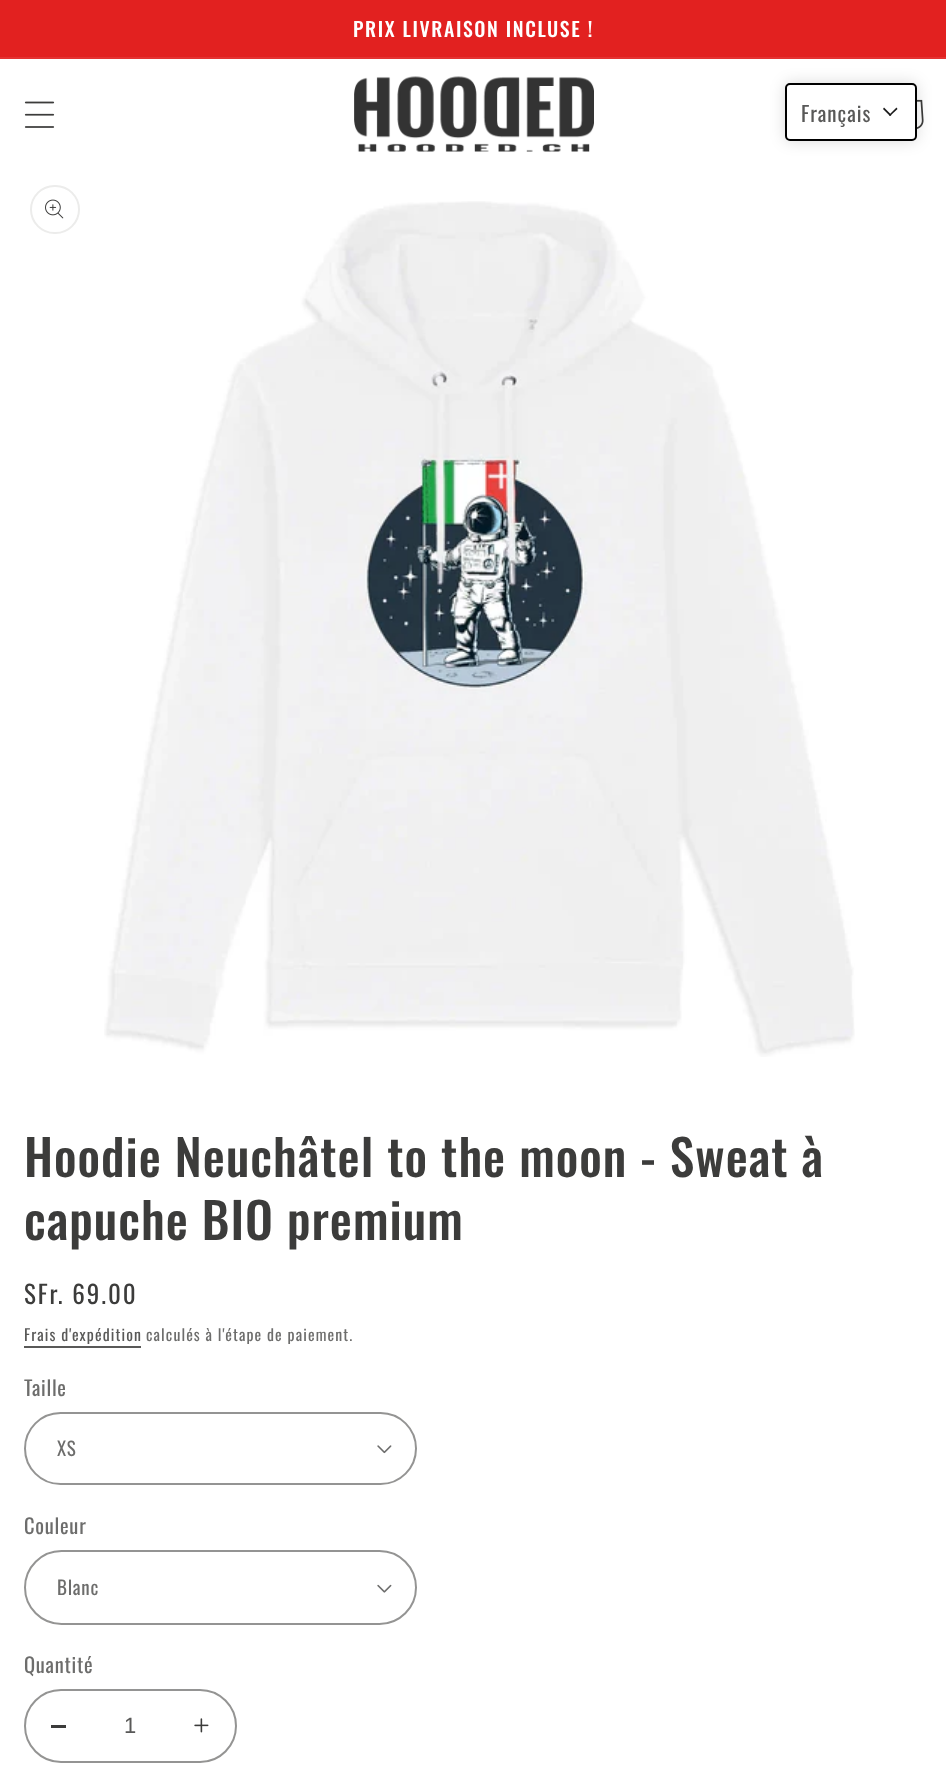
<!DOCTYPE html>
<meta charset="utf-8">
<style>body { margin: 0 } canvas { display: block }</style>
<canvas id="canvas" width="946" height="1792"></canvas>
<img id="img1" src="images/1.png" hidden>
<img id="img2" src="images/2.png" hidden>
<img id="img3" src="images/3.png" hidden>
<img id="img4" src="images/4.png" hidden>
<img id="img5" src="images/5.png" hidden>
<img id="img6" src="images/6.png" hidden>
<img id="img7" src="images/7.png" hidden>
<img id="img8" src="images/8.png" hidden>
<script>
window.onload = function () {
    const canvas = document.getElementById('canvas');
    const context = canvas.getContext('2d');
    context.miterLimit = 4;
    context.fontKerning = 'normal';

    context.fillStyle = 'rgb(255, 255, 255)';
    context.fillRect(0, 0, 946, 1792);
    context.fillStyle = 'rgb(226, 33, 32)';
    context.fillRect(0, 0, 946, 57);
    context.fillStyle = 'rgb(228, 51, 50)';
    context.fillRect(0, 57, 946, 2);
    context.drawImage(document.getElementById('img1'), 24, 101, 31, 27);
    context.drawImage(document.getElementById('img2'), 354, 76, 240, 76);
    context.drawImage(document.getElementById('img3'), 917, 99, 7, 30);
    context.fillStyle = 'rgba(0, 0, 0, 0.15)';
    context.filter = 'blur(7.5px)';
    context.beginPath();
    context.roundRect(785, 83, 132, 58, 5);
    context.fill();
    context.filter = 'none';
    context.fillStyle = 'rgb(255, 255, 255)';
    context.beginPath();
    context.roundRect(786, 84, 130, 56, 4);
    context.fill();
    context.strokeStyle = 'rgb(0, 0, 0)';
    context.lineWidth = 2;
    context.stroke();
    context.fillStyle = 'rgb(26, 26, 26)';
    context.beginPath();
    context.moveTo(896.5, 107.5);
    context.lineTo(897.5, 109);
    context.lineTo(890, 116);
    context.lineTo(889, 115);
    context.closePath();
    context.fill();
    context.beginPath();
    context.moveTo(884, 107.5);
    context.lineTo(891.5, 115);
    context.lineTo(890, 116);
    context.lineTo(883, 109);
    context.closePath();
    context.fill();
    context.beginPath();
    context.roundRect(31, 186, 48, 47, 23.5);
    context.strokeStyle = 'rgb(236, 236, 235)';
    context.stroke();
    context.drawImage(document.getElementById('img4'), 45, 199, 19, 20);
    context.drawImage(document.getElementById('img5'), 104, 201, 751, 856);
    context.fillStyle = 'rgb(89, 89, 88)';
    context.fillRect(24, 1346, 117, 2);
    context.drawImage(document.getElementById('img6'), 377, 1445, 15, 9);
    context.beginPath();
    context.roundRect(25, 1413, 391, 71, 35.5);
    context.strokeStyle = 'rgb(148, 148, 147)';
    context.stroke();
    context.drawImage(document.getElementById('img7'), 377, 1584, 15, 9);
    context.beginPath();
    context.roundRect(25, 1551, 391, 73, 36.5);
    context.stroke();
    context.fillStyle = 'rgb(60, 60, 59)';
    context.fillRect(51, 1725, 15, 3);
    context.drawImage(document.getElementById('img8'), 194, 1718, 15, 15);
    context.beginPath();
    context.roundRect(25, 1690, 211, 72, 36);
    context.stroke();
    context.letterSpacing = '1.6px';
    context.font = '500 19.75px Oswald';
    context.fillStyle = 'rgb(255, 255, 255)';
    context.fillText('PRIX LIVRAISON INCLUSE !', 353, 37);
    context.letterSpacing = '1px';
    context.font = '21px Oswald';
    context.fillStyle = 'rgb(89, 89, 88)';
    context.fillText('Français', 801, 122);
    context.font = '500 49.5px Oswald';
    context.fillStyle = 'rgb(60, 60, 59)';
    context.fillText('Hoodie Neuchâtel to the moon - Sweat à', 24, 1177);
    context.fillText('capuche BIO premium', 24, 1240);
    context.letterSpacing = '2px';
    context.font = '25px Oswald';
    context.fillText('SFr. 69.00', 24, 1304);
    context.letterSpacing = '1.1px';
    context.font = '15.75px Oswald';
    context.fillStyle = 'rgb(89, 89, 88)';
    context.fillText('Frais d\'expédition', 24, 1341);
    context.fillStyle = 'rgb(109, 109, 108)';
    context.fillText('calculés à l\'étape de paiement.', 146, 1341);
    context.letterSpacing = '0.75px';
    context.font = '20.5px Oswald';
    context.fillText('Taille', 24, 1396);
    context.font = '19px Oswald';
    context.fillText('XS', 57, 1456);
    context.font = '20.5px Oswald';
    context.fillText('Couleur', 24, 1534);
    context.font = '19px Oswald';
    context.fillText('Blanc', 57, 1595);
    context.font = '20.5px Oswald';
    context.fillText('Quantité', 24, 1673);
    context.letterSpacing = '0px';
    context.font = '22px Liberation Sans';
    context.fillStyle = 'rgb(89, 89, 88)';
    context.fillText('1', 124, 1733);
};
</script>
